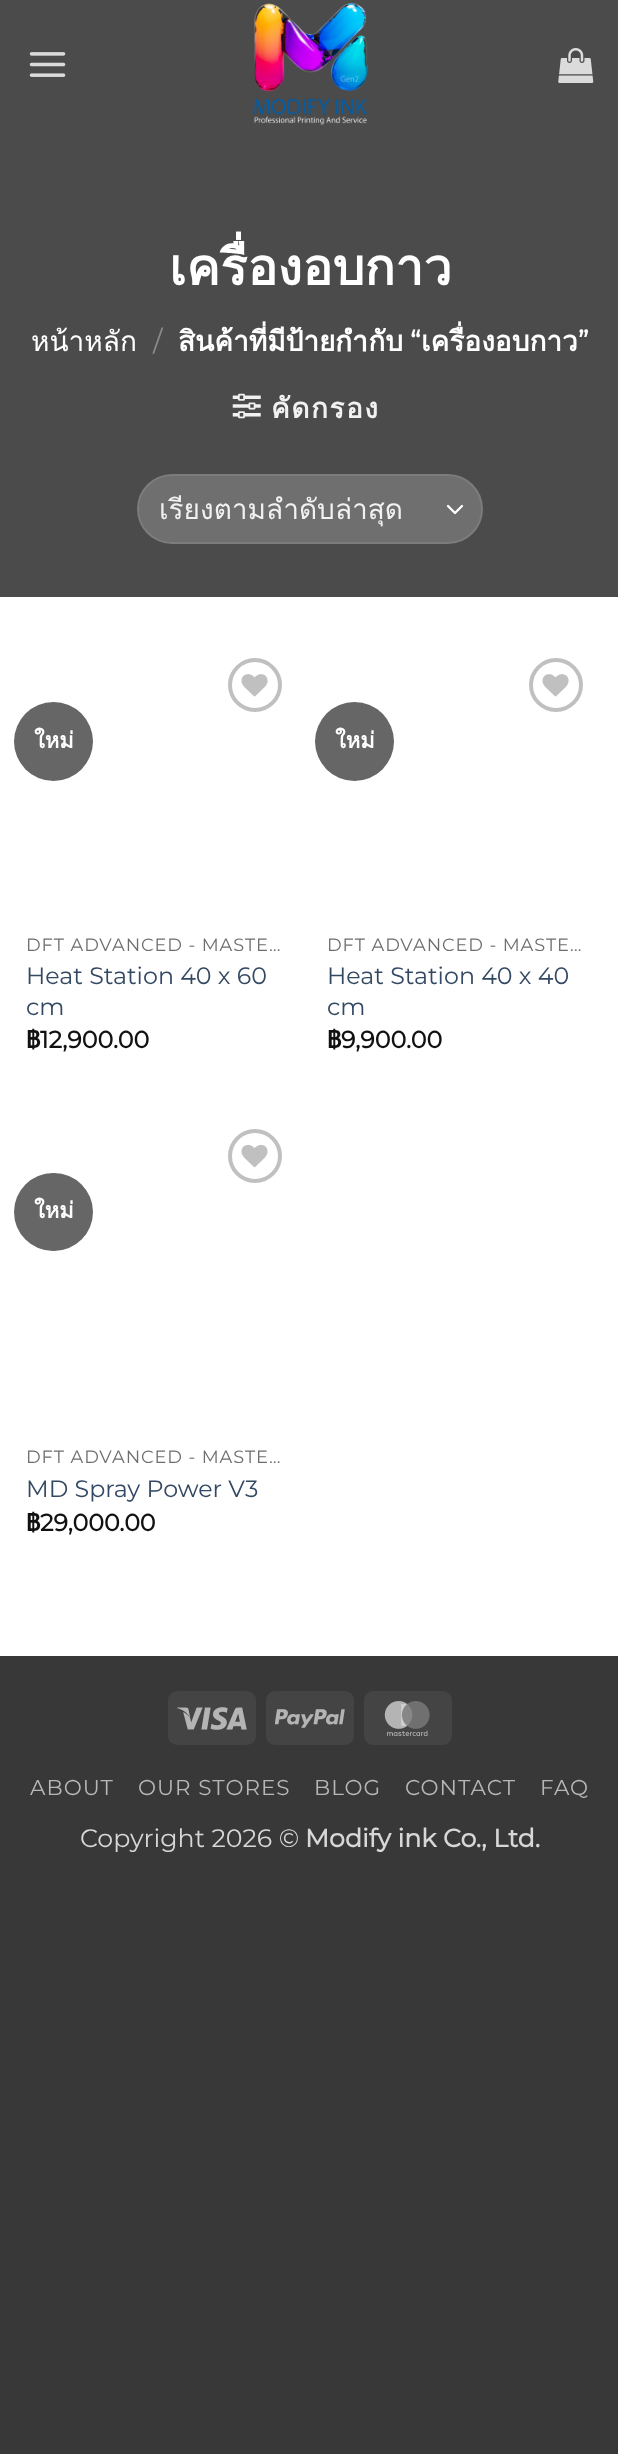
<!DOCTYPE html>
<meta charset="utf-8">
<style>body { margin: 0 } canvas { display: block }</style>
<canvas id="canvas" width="618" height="2454"></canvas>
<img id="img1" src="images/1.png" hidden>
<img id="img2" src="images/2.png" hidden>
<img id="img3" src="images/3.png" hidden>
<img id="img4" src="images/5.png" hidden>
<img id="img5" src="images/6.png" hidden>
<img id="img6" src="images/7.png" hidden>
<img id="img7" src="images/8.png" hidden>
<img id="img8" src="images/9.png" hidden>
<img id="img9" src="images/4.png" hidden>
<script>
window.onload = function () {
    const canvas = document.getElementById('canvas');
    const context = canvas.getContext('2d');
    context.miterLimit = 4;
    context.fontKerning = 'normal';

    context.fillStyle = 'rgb(56, 56, 56)';
    context.fillRect(0, 0, 618, 2454);
    context.fillStyle = 'rgb(255, 255, 255)';
    context.fillRect(0, 597, 618, 1059);
    context.fillStyle = 'rgb(75, 75, 75)';
    context.fillRect(0, 0, 618, 597);
    context.drawImage(document.getElementById('img1'), 29, 52, 37, 25);
    context.drawImage(document.getElementById('img2'), 253, 2, 115, 123);
    context.drawImage(document.getElementById('img3'), 558, 48, 36, 35);
    context.fillStyle = 'rgb(111, 111, 111)';
    context.beginPath();
    context.roundRect(137, 474, 346, 70, 35);
    context.fill();
    context.beginPath();
    context.moveTo(448, 506);
    context.lineTo(455, 513);
    context.lineTo(462, 506);
    context.strokeStyle = 'rgb(255, 255, 255)';
    context.lineWidth = 2.3;
    context.lineCap = 'round';
    context.lineJoin = 'round';
    context.stroke();
    context.beginPath();
    context.roundRect(138, 475, 344, 68, 34);
    context.strokeStyle = 'rgba(255, 255, 255, 0.09)';
    context.lineWidth = 2;
    context.lineJoin = 'miter';
    context.stroke();
    context.fillStyle = 'rgb(102, 102, 102)';
    context.beginPath();
    context.arc(53.5, 741.5, 39.5, 0, 2 * Math.PI);
    context.fill();
    context.beginPath();
    context.arc(255, 685, 25, 0, 2 * Math.PI);
    context.strokeStyle = 'rgb(192, 192, 192)';
    context.lineWidth = 4;
    context.stroke();
    context.drawImage(document.getElementById('img4'), 241, 674, 27, 23);
    context.beginPath();
    context.arc(354.5, 741.5, 39.5, 0, 2 * Math.PI);
    context.fill();
    context.beginPath();
    context.arc(556, 685, 25, 0, 2 * Math.PI);
    context.stroke();
    context.drawImage(document.getElementById('img4'), 542, 674, 27, 23);
    context.beginPath();
    context.roundRect(14, 1173, 79, 78, 39);
    context.fill();
    context.beginPath();
    context.arc(255, 1156, 25, 0, 2 * Math.PI);
    context.stroke();
    context.drawImage(document.getElementById('img5'), 241, 1144, 27, 24);
    context.fillStyle = 'rgb(68, 68, 68)';
    context.beginPath();
    context.roundRect(168, 1691, 88, 54, 9);
    context.fill();
    context.drawImage(document.getElementById('img6'), 177, 1707, 70, 23);
    context.beginPath();
    context.roundRect(266, 1691, 88, 54, 9);
    context.fill();
    context.drawImage(document.getElementById('img7'), 275, 1709, 70, 19);
    context.beginPath();
    context.roundRect(364, 1691, 88, 54, 9);
    context.fill();
    context.drawImage(document.getElementById('img8'), 384, 1701, 46, 35);
    context.font = 'bold 50.5px Loma';
    context.fillStyle = 'rgb(255, 255, 255)';
    context.fillText('เครื่องอบกาว', 169, 285);
    context.font = '28px Loma';
    context.fillText('หน้าหลัก', 31, 351);
    context.font = '100 28px Montserrat';
    context.fillStyle = 'rgb(138, 138, 138)';
    context.fillText('/', 153, 351);
    context.font = 'bold 28px Loma';
    context.fillStyle = 'rgb(255, 255, 255)';
    context.fillText('สินค้าที่มีป้ายกำกับ', 178, 351);
    context.font = 'bold 28px Montserrat';
    context.fillText('“', 410, 351);
    context.font = 'bold 28px Loma';
    context.fillText('เครื่องอบกาว', 421, 351);
    context.font = 'bold 28px Montserrat';
    context.fillText('”', 578, 351);
    context.letterSpacing = '1.5px';
    context.font = 'bold 28px Loma';
    context.fillStyle = 'rgb(241, 241, 241)';
    context.fillText('คัดกรอง', 271, 418);
    context.drawImage(document.getElementById('img9'), 232, 393, 29, 26);
    context.save();
    context.beginPath();
    context.rect(159, 487, 284, 45);
    context.clip();
    context.letterSpacing = '0px';
    context.font = '28px Loma';
    context.fillText('เรียงตามลำดับล่าสุด', 159, 519);
    context.restore();
    context.letterSpacing = '0px';
    context.font = 'bold 22px Loma';
    context.fillStyle = 'rgb(255, 255, 255)';
    context.fillText('ใหม่', 34, 748);
    context.letterSpacing = '0.9px';
    context.font = '100 17.8px Montserrat';
    context.fillStyle = 'rgb(110, 110, 110)';
    context.fillText('DFT ADVANCED - MASTE…', 26, 951);
    context.letterSpacing = '0px';
    context.font = '100 23.75px Montserrat';
    context.fillStyle = 'rgb(51, 72, 98)';
    context.fillText('Heat Station 40 x 60', 26, 984);
    context.fillText('cm', 26, 1015);
    context.font = 'bold 23.75px Loma';
    context.fillStyle = 'rgb(17, 17, 17)';
    context.fillText('฿', 26, 1048);
    context.font = 'bold 23.75px Montserrat';
    context.fillText('12,900.00', 40, 1048);
    context.font = 'bold 22px Loma';
    context.fillStyle = 'rgb(255, 255, 255)';
    context.fillText('ใหม่', 335, 748);
    context.letterSpacing = '0.9px';
    context.font = '100 17.8px Montserrat';
    context.fillStyle = 'rgb(110, 110, 110)';
    context.fillText('DFT ADVANCED - MASTE…', 327, 951);
    context.letterSpacing = '0px';
    context.font = '100 23.75px Montserrat';
    context.fillStyle = 'rgb(51, 72, 98)';
    context.fillText('Heat Station 40 x 40', 327, 984);
    context.fillText('cm', 327, 1015);
    context.font = 'bold 23.75px Loma';
    context.fillStyle = 'rgb(17, 17, 17)';
    context.fillText('฿', 327, 1048);
    context.font = 'bold 23.75px Montserrat';
    context.fillText('9,900.00', 341, 1048);
    context.font = 'bold 22px Loma';
    context.fillStyle = 'rgb(255, 255, 255)';
    context.fillText('ใหม่', 34, 1218);
    context.letterSpacing = '0.9px';
    context.font = '100 17.8px Montserrat';
    context.fillStyle = 'rgb(110, 110, 110)';
    context.fillText('DFT ADVANCED - MASTE…', 26, 1463);
    context.letterSpacing = '0px';
    context.font = '100 23.75px Montserrat';
    context.fillStyle = 'rgb(51, 72, 98)';
    context.fillText('MD Spray Power V3', 26, 1497);
    context.font = 'bold 23.75px Loma';
    context.fillStyle = 'rgb(17, 17, 17)';
    context.fillText('฿', 26, 1531);
    context.font = 'bold 23.75px Montserrat';
    context.fillText('29,000.00', 40, 1531);
    context.letterSpacing = '1px';
    context.font = '100 21.5px Montserrat';
    context.fillStyle = 'rgb(183, 183, 183)';
    context.fillText('ABOUT', 30, 1795);
    context.fillText('OUR STORES', 138, 1795);
    context.fillText('BLOG', 314, 1795);
    context.fillText('CONTACT', 405, 1795);
    context.fillText('FAQ', 540, 1795);
    context.letterSpacing = '0px';
    context.font = '100 25.25px Montserrat';
    context.fillStyle = 'rgb(215, 215, 215)';
    context.fillText('Copyright 2026 ©', 80, 1847);
    context.font = 'bold 25.25px Montserrat';
    context.fillText('Modify ink Co., Ltd.', 305, 1847);
};
</script>
